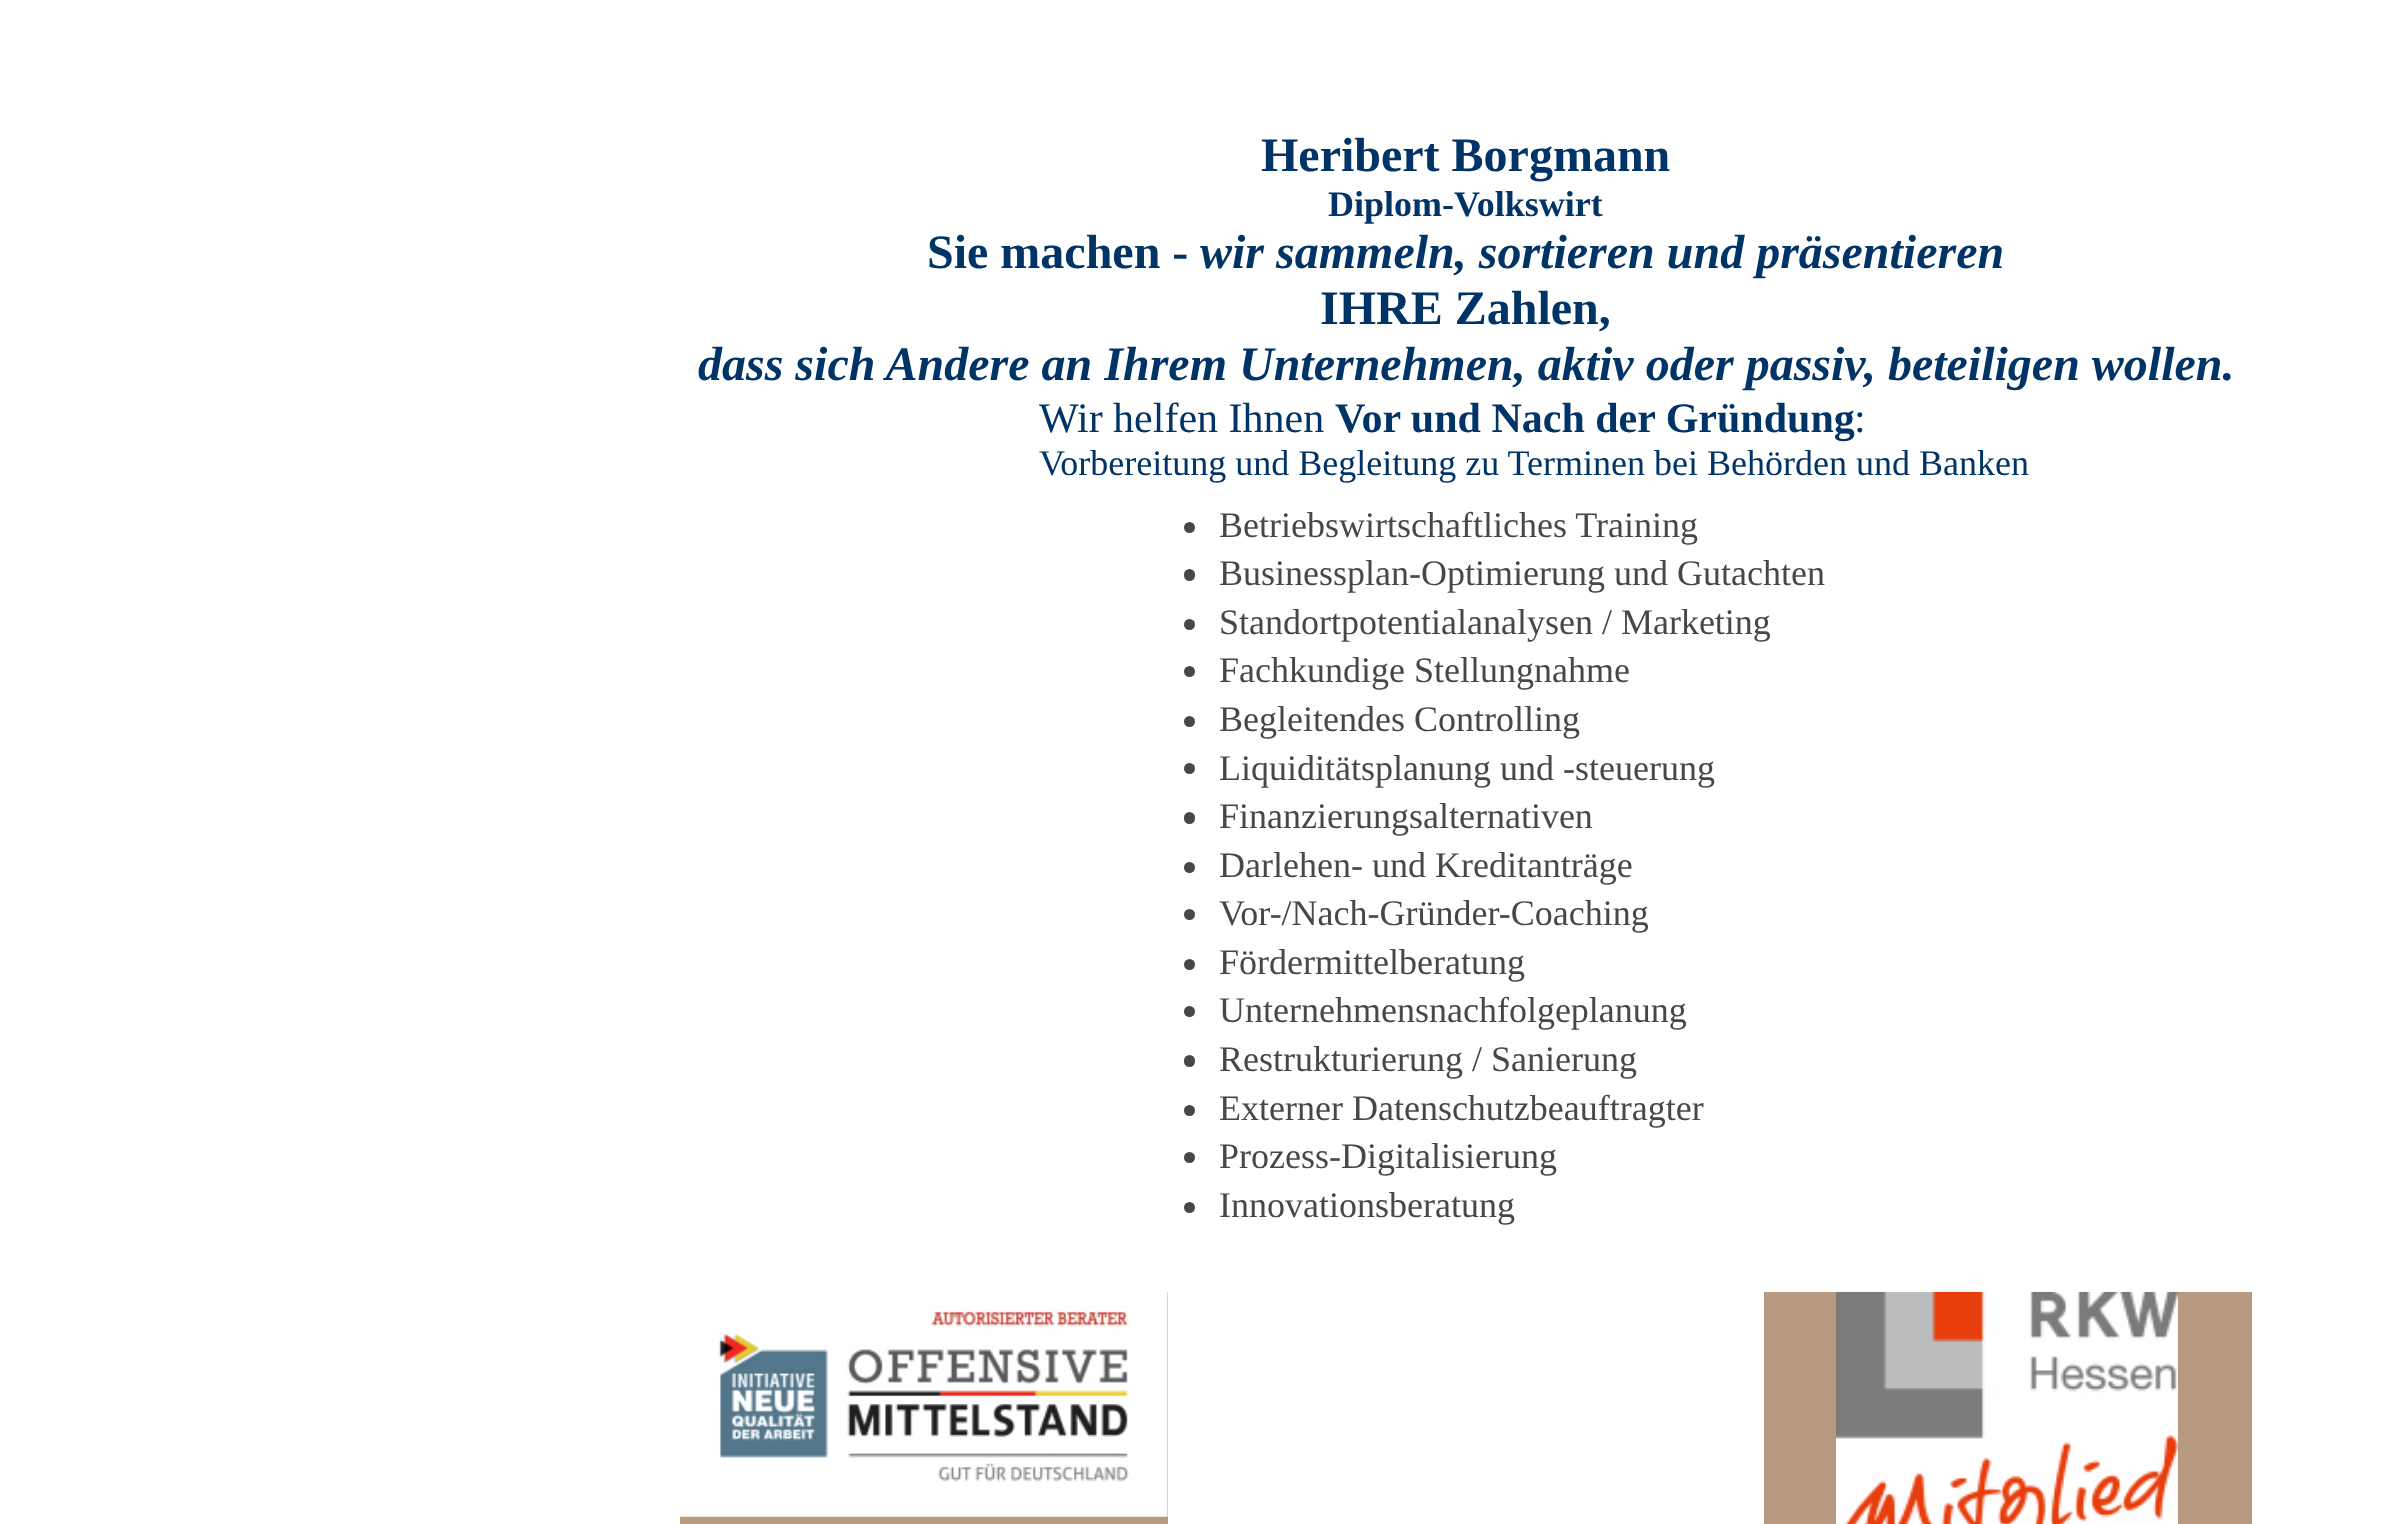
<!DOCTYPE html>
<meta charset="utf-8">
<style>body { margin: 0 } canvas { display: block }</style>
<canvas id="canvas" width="2389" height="1524"></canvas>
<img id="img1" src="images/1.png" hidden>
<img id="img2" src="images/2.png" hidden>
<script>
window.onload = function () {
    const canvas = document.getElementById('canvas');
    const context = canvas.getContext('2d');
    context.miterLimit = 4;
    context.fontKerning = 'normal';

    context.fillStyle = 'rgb(255, 255, 255)';
    context.fillRect(0, 0, 2389, 1524);
    context.fillStyle = 'rgb(71, 71, 71)';
    context.beginPath();
    context.arc(1189.5, 527.5, 5.5, 0, 2 * Math.PI);
    context.fill();
    context.beginPath();
    context.roundRect(1184, 569, 11, 12, 5.5);
    context.fill();
    context.beginPath();
    context.arc(1189.5, 624.5, 5.5, 0, 2 * Math.PI);
    context.fill();
    context.beginPath();
    context.arc(1189.5, 671.5, 5.5, 0, 2 * Math.PI);
    context.fill();
    context.beginPath();
    context.arc(1189.5, 721.5, 5.5, 0, 2 * Math.PI);
    context.fill();
    context.beginPath();
    context.arc(1189.5, 768.5, 5.5, 0, 2 * Math.PI);
    context.fill();
    context.beginPath();
    context.roundRect(1184, 812, 11, 12, 5.5);
    context.fill();
    context.beginPath();
    context.arc(1189.5, 867.5, 5.5, 0, 2 * Math.PI);
    context.fill();
    context.beginPath();
    context.arc(1189.5, 914.5, 5.5, 0, 2 * Math.PI);
    context.fill();
    context.beginPath();
    context.arc(1189.5, 964.5, 5.5, 0, 2 * Math.PI);
    context.fill();
    context.beginPath();
    context.arc(1189.5, 1011.5, 5.5, 0, 2 * Math.PI);
    context.fill();
    context.beginPath();
    context.roundRect(1184, 1055, 11, 12, 5.5);
    context.fill();
    context.beginPath();
    context.arc(1189.5, 1110.5, 5.5, 0, 2 * Math.PI);
    context.fill();
    context.beginPath();
    context.arc(1189.5, 1157.5, 5.5, 0, 2 * Math.PI);
    context.fill();
    context.beginPath();
    context.arc(1189.5, 1207.5, 5.5, 0, 2 * Math.PI);
    context.fill();
    context.fillStyle = 'rgb(184, 154, 128)';
    context.fillRect(680, 1292, 488, 232);
    context.drawImage(document.getElementById('img1'), 680, 1292, 488, 225);
    context.fillRect(1764, 1292, 488, 232);
    context.drawImage(document.getElementById('img2'), 1836, 1291, 342, 233);
    context.font = 'bold 48px Liberation Serif';
    context.fillStyle = 'rgb(0, 51, 102)';
    context.fillText('Heribert Borgmann', 1261, 171);
    context.font = 'bold 36px Liberation Serif';
    context.fillText('Diplom-Volkswirt', 1328, 216);
    context.font = 'bold 48px Liberation Serif';
    context.fillText('Sie machen -', 927, 268);
    context.font = 'italic bold 48px Liberation Serif';
    context.fillText('wir sammeln, sortieren und präsentieren', 1200, 268);
    context.font = 'bold 48px Liberation Serif';
    context.fillText('IHRE Zahlen,', 1320, 324);
    context.font = 'italic bold 48px Liberation Serif';
    context.fillText('dass sich Andere an Ihrem Unternehmen, aktiv oder passiv, beteiligen wollen.', 698, 380);
    context.font = '42px Liberation Serif';
    context.fillText('Wir helfen Ihnen', 1039, 432);
    context.font = 'bold 42px Liberation Serif';
    context.fillText('Vor und Nach der Gründung', 1335, 432);
    context.font = '42px Liberation Serif';
    context.fillText(':', 1854, 432);
    context.font = '36px Liberation Serif';
    context.fillText('Vorbereitung und Begleitung zu Terminen bei Behörden und Banken', 1039, 475);
    context.fillStyle = 'rgb(71, 71, 71)';
    context.fillText('Betriebswirtschaftliches Training', 1219, 537);
    context.fillText('Businessplan-Optimierung und Gutachten', 1219, 585);
    context.fillText('Standortpotentialanalysen / Marketing', 1219, 634);
    context.fillText('Fachkundige Stellungnahme', 1219, 682);
    context.fillText('Begleitendes Controlling', 1219, 731);
    context.fillText('Liquiditätsplanung und -steuerung', 1219, 780);
    context.fillText('Finanzierungsalternativen', 1219, 828);
    context.fillText('Darlehen- und Kreditanträge', 1219, 877);
    context.fillText('Vor-/Nach-Gründer-Coaching', 1219, 925);
    context.fillText('Fördermittelberatung', 1219, 974);
    context.fillText('Unternehmensnachfolgeplanung', 1219, 1022);
    context.fillText('Restrukturierung / Sanierung', 1219, 1071);
    context.fillText('Externer Datenschutzbeauftragter', 1219, 1120);
    context.fillText('Prozess-Digitalisierung', 1219, 1168);
    context.fillText('Innovationsberatung', 1219, 1217);
};
</script>
